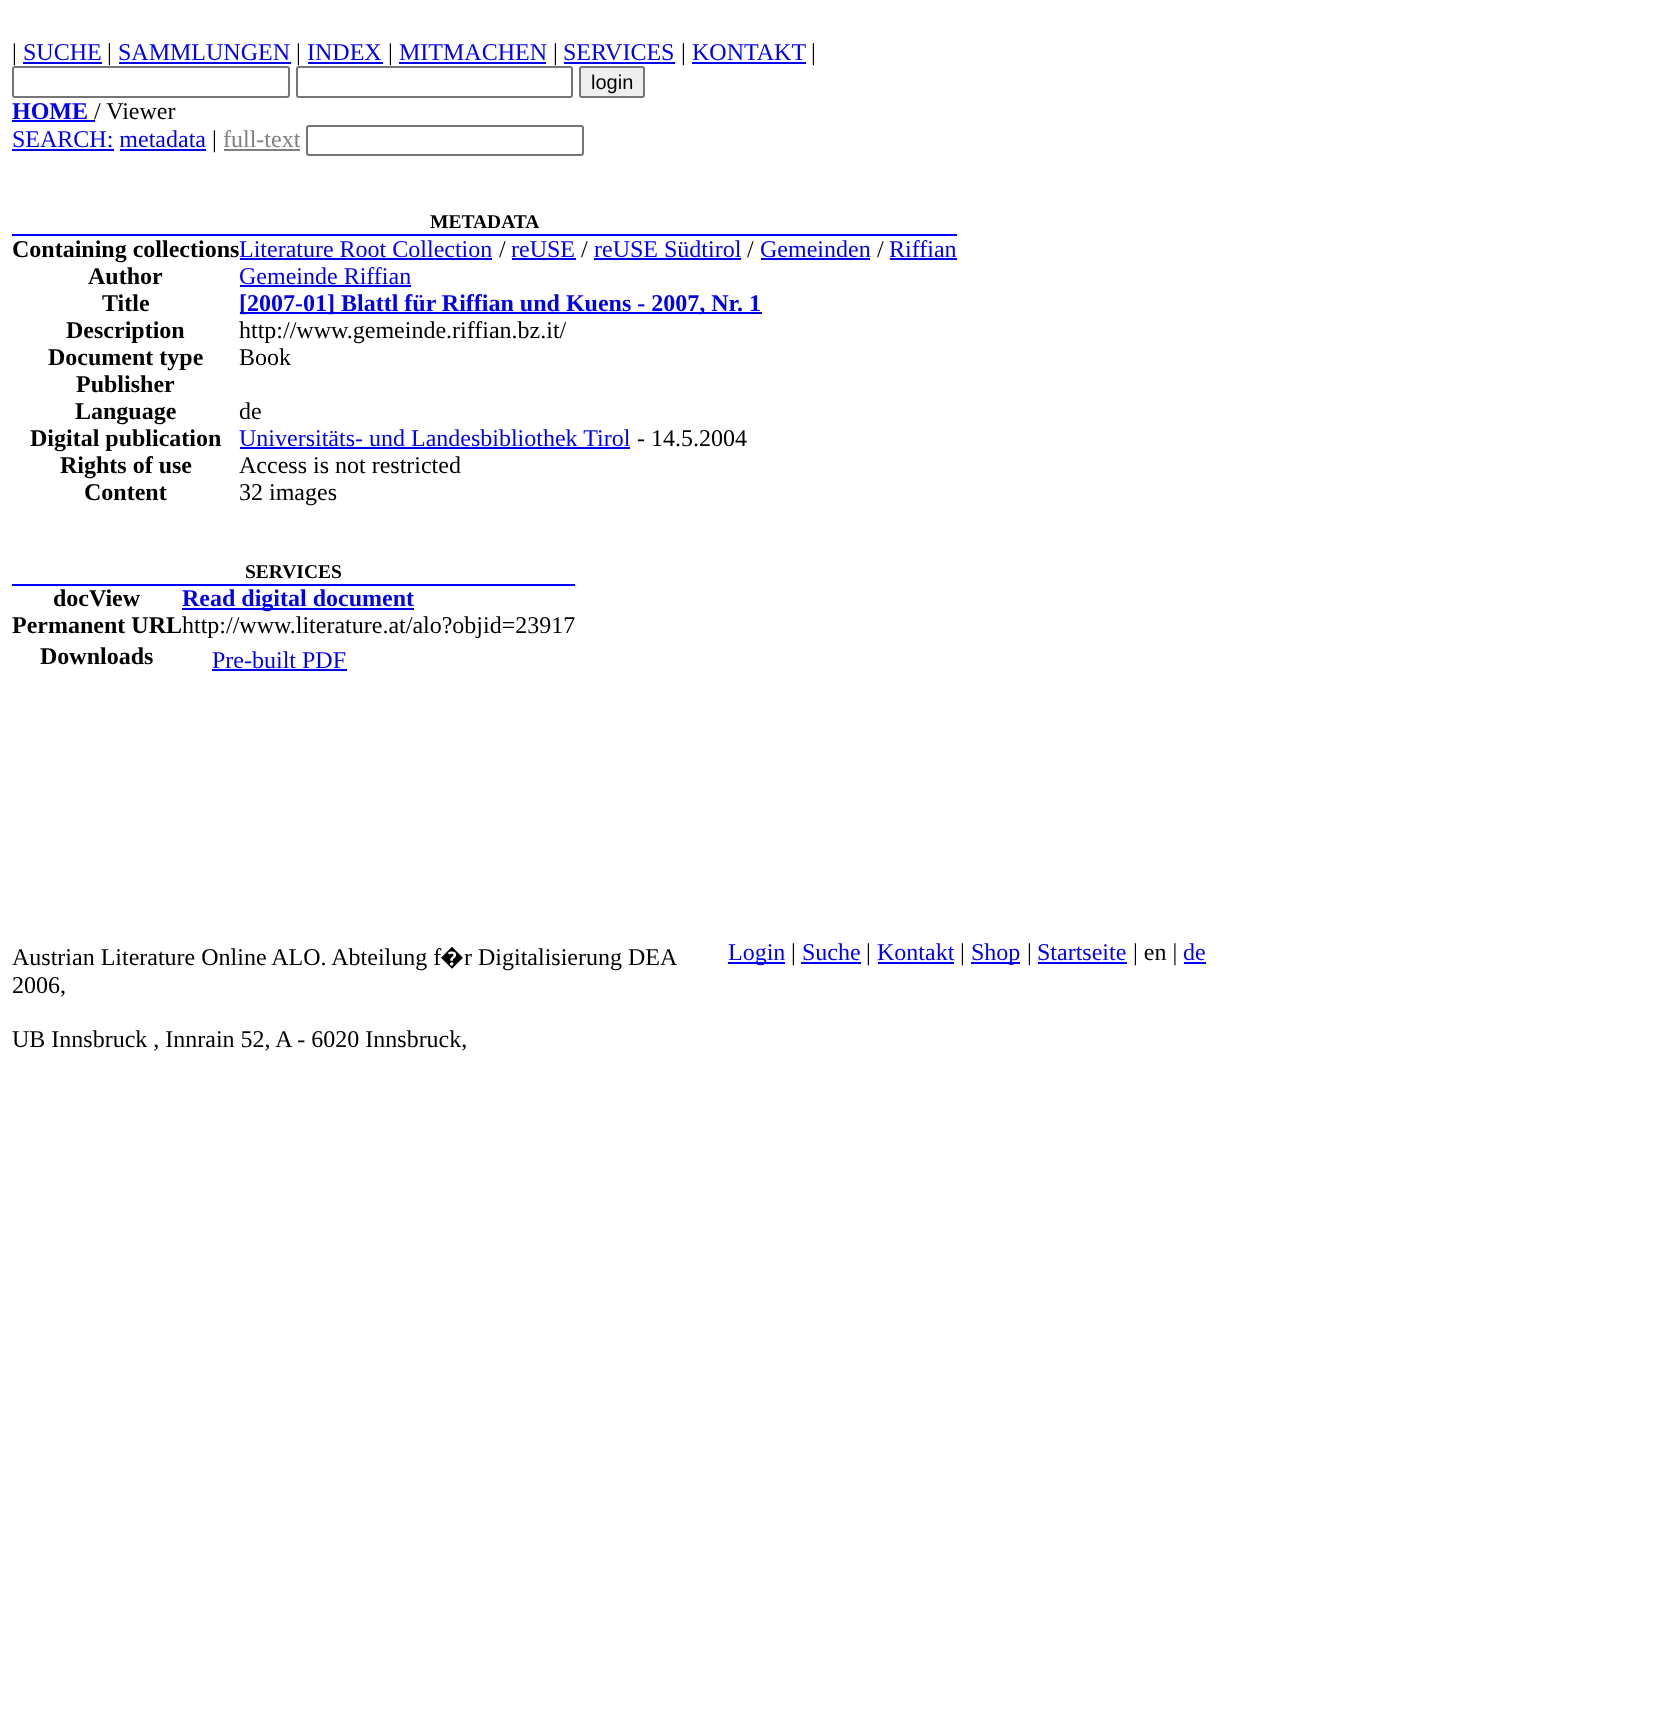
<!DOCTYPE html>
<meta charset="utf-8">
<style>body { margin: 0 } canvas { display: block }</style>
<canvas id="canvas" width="1657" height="1721"></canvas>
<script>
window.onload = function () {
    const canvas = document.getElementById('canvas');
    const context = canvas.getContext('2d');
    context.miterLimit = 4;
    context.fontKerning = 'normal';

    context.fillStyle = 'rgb(255, 255, 255)';
    context.fillRect(0, 0, 1657, 1721);
    context.fillStyle = 'rgb(0, 0, 238)';
    context.fillRect(23, 62, 79, 2);
    context.fillRect(119, 62, 172, 2);
    context.fillRect(308, 62, 75, 2);
    context.fillRect(399, 62, 147, 2);
    context.fillRect(564, 62, 111, 2);
    context.fillRect(692, 62, 114, 2);
    context.beginPath();
    context.roundRect(13, 67, 276, 30, 2);
    context.strokeStyle = 'rgb(118, 118, 118)';
    context.lineWidth = 2;
    context.stroke();
    context.beginPath();
    context.roundRect(297, 67, 275, 30, 2);
    context.stroke();
    context.fillStyle = 'rgb(239, 239, 239)';
    context.beginPath();
    context.roundRect(580, 67, 64, 30, 2);
    context.fill();
    context.stroke();
    context.fillStyle = 'rgb(0, 0, 238)';
    context.fillRect(12, 120, 83, 2);
    context.fillRect(12, 149, 102, 2);
    context.fillStyle = 'rgb(128, 128, 128)';
    context.fillRect(224, 149, 76, 2);
    context.beginPath();
    context.roundRect(307, 126, 276, 29, 2);
    context.stroke();
    context.fillStyle = 'rgb(0, 0, 238)';
    context.fillRect(120, 149, 86, 2);
    context.fillStyle = 'rgb(0, 0, 255)';
    context.fillRect(12, 234, 945, 2);
    context.fillStyle = 'rgb(0, 0, 238)';
    context.fillRect(240, 258, 252, 2);
    context.fillRect(512, 258, 64, 2);
    context.fillRect(594, 258, 147, 2);
    context.fillRect(761, 258, 109, 2);
    context.fillRect(890, 258, 67, 2);
    context.fillRect(240, 285, 171, 2);
    context.fillRect(240, 312, 522, 2);
    context.fillRect(240, 447, 390, 2);
    context.fillStyle = 'rgb(0, 0, 255)';
    context.fillRect(12, 584, 563, 2);
    context.fillStyle = 'rgb(0, 0, 238)';
    context.fillRect(182, 608, 232, 2);
    context.fillRect(212, 669, 135, 2);
    context.fillRect(728, 962, 57, 2);
    context.fillRect(801, 962, 60, 2);
    context.fillRect(878, 962, 76, 2);
    context.fillRect(971, 962, 49, 2);
    context.fillRect(1038, 962, 89, 2);
    context.fillRect(1184, 962, 22, 2);
    context.font = '24px Liberation Serif';
    context.fillStyle = 'rgb(0, 0, 0)';
    context.fillText('|', 12, 60);
    context.fillStyle = 'rgb(0, 0, 238)';
    context.fillText('SUCHE', 23, 60);
    context.fillStyle = 'rgb(0, 0, 0)';
    context.fillText('|', 107, 60);
    context.fillStyle = 'rgb(0, 0, 238)';
    context.fillText('SAMMLUNGEN', 118, 60);
    context.fillStyle = 'rgb(0, 0, 0)';
    context.fillText('|', 296, 60);
    context.fillStyle = 'rgb(0, 0, 238)';
    context.fillText('INDEX', 307, 60);
    context.fillStyle = 'rgb(0, 0, 0)';
    context.fillText('|', 388, 60);
    context.fillStyle = 'rgb(0, 0, 238)';
    context.fillText('MITMACHEN', 399, 60);
    context.fillStyle = 'rgb(0, 0, 0)';
    context.fillText('|', 553, 60);
    context.fillStyle = 'rgb(0, 0, 238)';
    context.fillText('SERVICES', 563, 60);
    context.fillStyle = 'rgb(0, 0, 0)';
    context.fillText('|', 681, 60);
    context.fillStyle = 'rgb(0, 0, 238)';
    context.fillText('KONTAKT', 692, 60);
    context.fillStyle = 'rgb(0, 0, 0)';
    context.fillText('|', 811, 60);
    context.font = '20px Liberation Sans';
    context.fillText('login', 591, 89);
    context.font = 'bold 24px Liberation Serif';
    context.fillStyle = 'rgb(0, 0, 238)';
    context.fillText('HOME', 12, 119);
    context.font = '24px Liberation Serif';
    context.fillStyle = 'rgb(0, 0, 0)';
    context.fillText('/ Viewer', 94, 119);
    context.fillStyle = 'rgb(0, 0, 238)';
    context.fillText('SEARCH: metadata', 12, 147);
    context.fillStyle = 'rgb(0, 0, 0)';
    context.fillText('|', 212, 147);
    context.fillStyle = 'rgb(128, 128, 128)';
    context.fillText('full-text', 223, 147);
    context.font = 'bold 19.5px Liberation Serif';
    context.fillStyle = 'rgb(0, 0, 0)';
    context.fillText('METADATA', 430, 228);
    context.font = 'bold 24px Liberation Serif';
    context.fillText('Containing collections', 12, 257);
    context.font = '24px Liberation Serif';
    context.fillStyle = 'rgb(0, 0, 238)';
    context.fillText('Literature Root Collection', 239, 257);
    context.fillStyle = 'rgb(0, 0, 0)';
    context.fillText('/', 499, 257);
    context.fillStyle = 'rgb(0, 0, 238)';
    context.fillText('reUSE', 511, 257);
    context.fillStyle = 'rgb(0, 0, 0)';
    context.fillText('/', 581, 257);
    context.fillStyle = 'rgb(0, 0, 238)';
    context.fillText('reUSE Südtirol', 594, 257);
    context.fillStyle = 'rgb(0, 0, 0)';
    context.fillText('/', 747, 257);
    context.fillStyle = 'rgb(0, 0, 238)';
    context.fillText('Gemeinden', 760, 257);
    context.fillStyle = 'rgb(0, 0, 0)';
    context.fillText('/', 877, 257);
    context.fillStyle = 'rgb(0, 0, 238)';
    context.fillText('Riffian', 889, 257);
    context.font = 'bold 24px Liberation Serif';
    context.fillStyle = 'rgb(0, 0, 0)';
    context.fillText('Author', 88, 284);
    context.font = '24px Liberation Serif';
    context.fillStyle = 'rgb(0, 0, 238)';
    context.fillText('Gemeinde Riffian', 239, 284);
    context.font = 'bold 24px Liberation Serif';
    context.fillStyle = 'rgb(0, 0, 0)';
    context.fillText('Title', 102, 311);
    context.fillStyle = 'rgb(0, 0, 238)';
    context.fillText('[2007-01] Blattl für Riffian und Kuens - 2007, Nr. 1', 239, 311);
    context.fillStyle = 'rgb(0, 0, 0)';
    context.fillText('Description', 66, 338);
    context.font = '24px Liberation Serif';
    context.fillText('http://www.gemeinde.riffian.bz.it/', 239, 338);
    context.font = 'bold 24px Liberation Serif';
    context.fillText('Document type', 48, 365);
    context.font = '24px Liberation Serif';
    context.fillText('Book', 239, 365);
    context.font = 'bold 24px Liberation Serif';
    context.fillText('Publisher', 76, 392);
    context.fillText('Language', 75, 419);
    context.font = '24px Liberation Serif';
    context.fillText('de', 239, 419);
    context.font = 'bold 24px Liberation Serif';
    context.fillText('Digital publication', 30, 446);
    context.font = '24px Liberation Serif';
    context.fillStyle = 'rgb(0, 0, 238)';
    context.fillText('Universitäts- und Landesbibliothek Tirol', 239, 446);
    context.fillStyle = 'rgb(0, 0, 0)';
    context.fillText('- 14.5.2004', 637, 446);
    context.font = 'bold 24px Liberation Serif';
    context.fillText('Rights of use', 60, 473);
    context.font = '24px Liberation Serif';
    context.fillText('Access is not restricted', 239, 473);
    context.font = 'bold 24px Liberation Serif';
    context.fillText('Content', 84, 500);
    context.font = '24px Liberation Serif';
    context.fillText('32 images', 239, 500);
    context.font = 'bold 19.5px Liberation Serif';
    context.fillText('SERVICES', 245, 578);
    context.font = 'bold 24px Liberation Serif';
    context.fillText('docView', 53, 606);
    context.fillStyle = 'rgb(0, 0, 238)';
    context.fillText('Read digital document', 182, 606);
    context.fillStyle = 'rgb(0, 0, 0)';
    context.fillText('Permanent URL', 12, 633);
    context.font = '24px Liberation Serif';
    context.fillText('http://www.literature.at/alo?objid=23917', 182, 633);
    context.font = 'bold 24px Liberation Serif';
    context.fillText('Downloads', 40, 664);
    context.font = '24px Liberation Serif';
    context.fillStyle = 'rgb(0, 0, 238)';
    context.fillText('Pre-built PDF', 212, 668);
    context.fillStyle = 'rgb(0, 0, 0)';
    context.fillText('Austrian Literature Online ALO. Abteilung f', 12, 965);
    context.font = '24px Noto Sans';
    context.fillText('�', 440, 965);
    context.font = '24px Liberation Serif';
    context.fillText('r Digitalisierung DEA', 464, 965);
    context.fillText('2006,', 12, 993);
    context.fillText('UB Innsbruck , Innrain 52, A - 6020 Innsbruck,', 12, 1047);
    context.fillStyle = 'rgb(0, 0, 238)';
    context.fillText('Login', 728, 960);
    context.fillStyle = 'rgb(0, 0, 0)';
    context.fillText('|', 791, 960);
    context.fillStyle = 'rgb(0, 0, 238)';
    context.fillText('Suche', 802, 960);
    context.fillStyle = 'rgb(0, 0, 0)';
    context.fillText('|', 866, 960);
    context.fillStyle = 'rgb(0, 0, 238)';
    context.fillText('Kontakt', 877, 960);
    context.fillStyle = 'rgb(0, 0, 0)';
    context.fillText('|', 960, 960);
    context.fillStyle = 'rgb(0, 0, 238)';
    context.fillText('Shop', 971, 960);
    context.fillStyle = 'rgb(0, 0, 0)';
    context.fillText('|', 1027, 960);
    context.fillStyle = 'rgb(0, 0, 238)';
    context.fillText('Startseite', 1037, 960);
    context.fillStyle = 'rgb(0, 0, 0)';
    context.fillText('| en |', 1133, 960);
    context.fillStyle = 'rgb(0, 0, 238)';
    context.fillText('de', 1183, 960);
};
</script>
